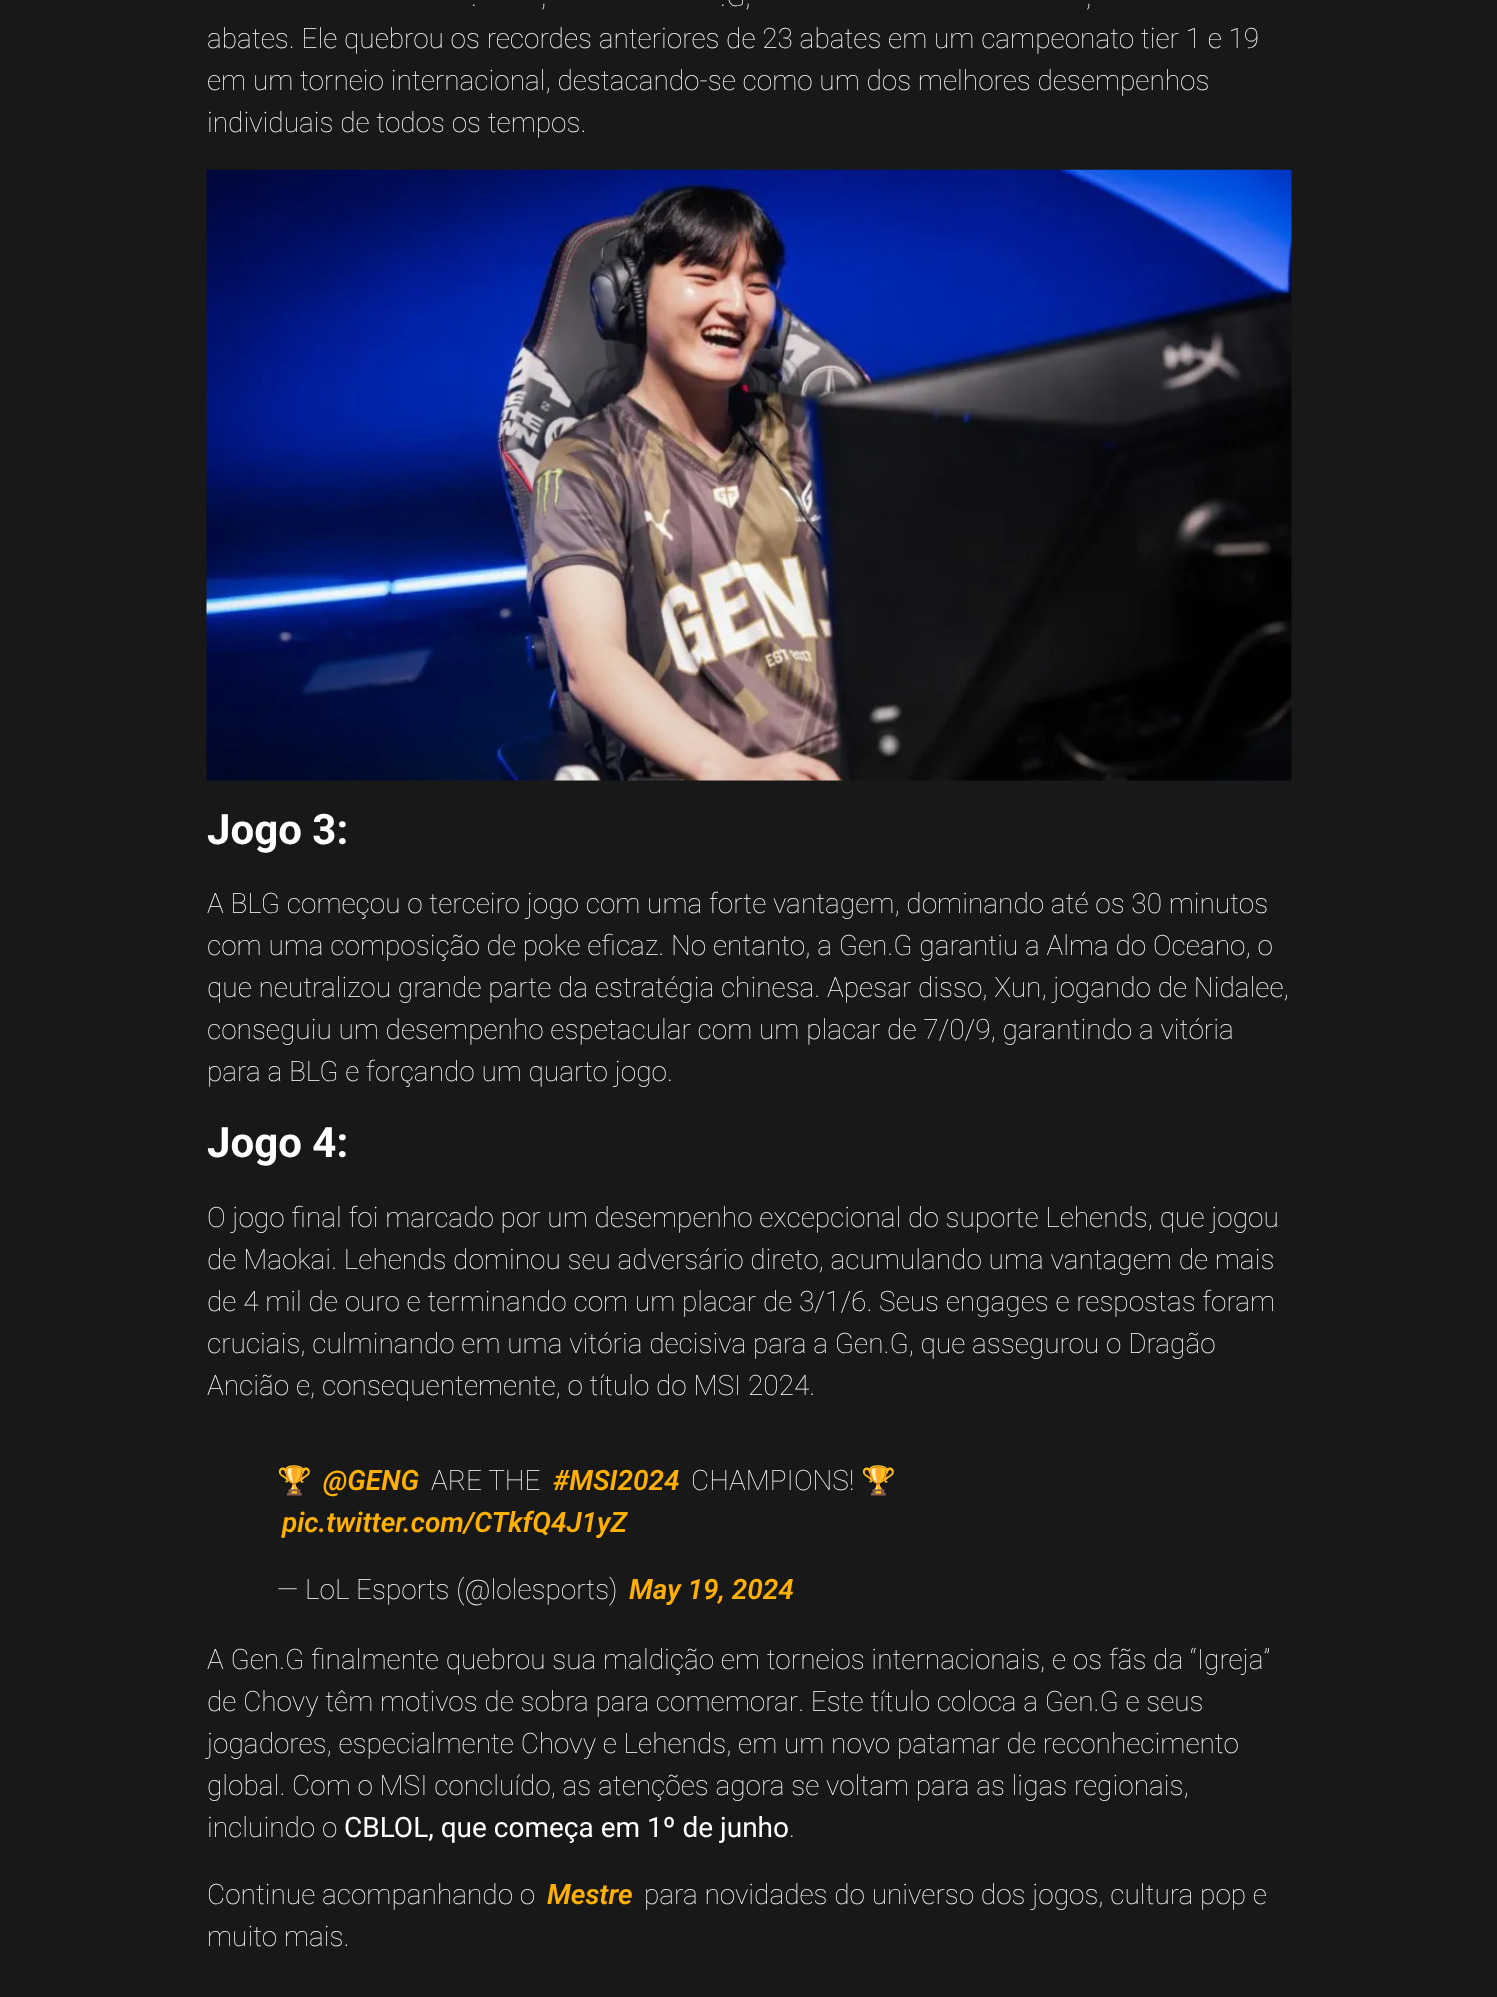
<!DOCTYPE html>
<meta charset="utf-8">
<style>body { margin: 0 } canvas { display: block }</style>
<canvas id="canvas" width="1497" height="1997"></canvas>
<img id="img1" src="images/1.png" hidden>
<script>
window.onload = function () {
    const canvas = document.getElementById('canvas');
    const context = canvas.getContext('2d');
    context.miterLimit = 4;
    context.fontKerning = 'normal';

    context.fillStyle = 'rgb(24, 24, 24)';
    context.fillRect(0, 0, 1497, 1997);
    context.drawImage(document.getElementById('img1'), 206, 169, 1086, 612);
    context.font = '100 28px Roboto';
    context.fillStyle = 'rgb(255, 255, 255)';
    context.fillText('.', 471, 6);
    context.fillText(',', 541, 6);
    context.fillText('.G,', 720, 6);
    context.fillText(',', 1086, 6);
    context.fillText('abates. Ele quebrou os recordes anteriores de 23 abates em um campeonato tier 1 e 19', 207, 48);
    context.fillText('em um torneio internacional, destacando-se como um dos melhores desempenhos', 207, 90);
    context.fillText('individuais de todos os tempos.', 207, 132);
    context.font = 'bold 42px Roboto';
    context.fillText('Jogo 3:', 207, 844);
    context.font = '100 28px Roboto';
    context.fillText('A BLG começou o terceiro jogo com uma forte vantagem, dominando até os 30 minutos', 207, 913);
    context.fillText('com uma composição de poke eficaz. No entanto, a Gen.G garantiu a Alma do Oceano, o', 207, 955);
    context.fillText('que neutralizou grande parte da estratégia chinesa. Apesar disso, Xun, jogando de Nidalee,', 207, 997);
    context.fillText('conseguiu um desempenho espetacular com um placar de 7/0/9, garantindo a vitória', 207, 1039);
    context.fillText('para a BLG e forçando um quarto jogo.', 207, 1081);
    context.font = 'bold 42px Roboto';
    context.fillText('Jogo 4:', 207, 1157);
    context.font = '100 28px Roboto';
    context.fillText('O jogo final foi marcado por um desempenho excepcional do suporte Lehends, que jogou', 207, 1227);
    context.fillText('de Maokai. Lehends dominou seu adversário direto, acumulando uma vantagem de mais', 207, 1269);
    context.fillText('de 4 mil de ouro e terminando com um placar de 3/1/6. Seus engages e respostas foram', 207, 1311);
    context.fillText('cruciais, culminando em uma vitória decisiva para a Gen.G, que assegurou o Dragão', 207, 1353);
    context.fillText('Ancião e, consequentemente, o título do MSI 2024.', 207, 1395);
    context.font = '28px Noto Color Emoji';
    context.fillText('🏆', 277, 1490);
    context.font = 'italic 600 28px Roboto';
    context.fillStyle = 'rgb(255, 176, 0)';
    context.fillText('@GENG', 323, 1490);
    context.font = '100 28px Roboto';
    context.fillStyle = 'rgb(255, 255, 255)';
    context.fillText('ARE THE', 431, 1490);
    context.font = 'italic 600 28px Roboto';
    context.fillStyle = 'rgb(255, 176, 0)';
    context.fillText('#MSI2024', 553, 1490);
    context.font = '100 28px Roboto';
    context.fillStyle = 'rgb(255, 255, 255)';
    context.fillText('CHAMPIONS!', 691, 1490);
    context.font = '28px Noto Color Emoji';
    context.fillText('🏆', 861, 1490);
    context.font = 'italic 600 28px Roboto';
    context.fillStyle = 'rgb(255, 176, 0)';
    context.fillText('pic.twitter.com/CTkfQ4J1yZ', 282, 1532);
    context.font = '100 28px Roboto';
    context.fillStyle = 'rgb(255, 255, 255)';
    context.fillText('— LoL Esports (@lolesports)', 277, 1599);
    context.font = 'italic 600 28px Roboto';
    context.fillStyle = 'rgb(255, 176, 0)';
    context.fillText('May 19, 2024', 629, 1599);
    context.font = '100 28px Roboto';
    context.fillStyle = 'rgb(255, 255, 255)';
    context.fillText('A Gen.G finalmente quebrou sua maldição em torneios internacionais, e os fãs da “Igreja”', 207, 1669);
    context.fillText('de Chovy têm motivos de sobra para comemorar. Este título coloca a Gen.G e seus', 207, 1711);
    context.fillText('jogadores, especialmente Chovy e Lehends, em um novo patamar de reconhecimento', 207, 1753);
    context.fillText('global. Com o MSI concluído, as atenções agora se voltam para as ligas regionais,', 207, 1795);
    context.fillText('incluindo o', 207, 1837);
    context.font = '28px Roboto';
    context.fillText('CBLOL, que começa em 1º de junho', 344, 1837);
    context.font = '100 28px Roboto';
    context.fillText('.', 789, 1837);
    context.fillText('Continue acompanhando o', 207, 1904);
    context.font = 'italic 600 28px Roboto';
    context.fillStyle = 'rgb(255, 176, 0)';
    context.fillText('Mestre', 547, 1904);
    context.font = '100 28px Roboto';
    context.fillStyle = 'rgb(255, 255, 255)';
    context.fillText('para novidades do universo dos jogos, cultura pop e', 644, 1904);
    context.fillText('muito mais.', 207, 1946);
};
</script>
